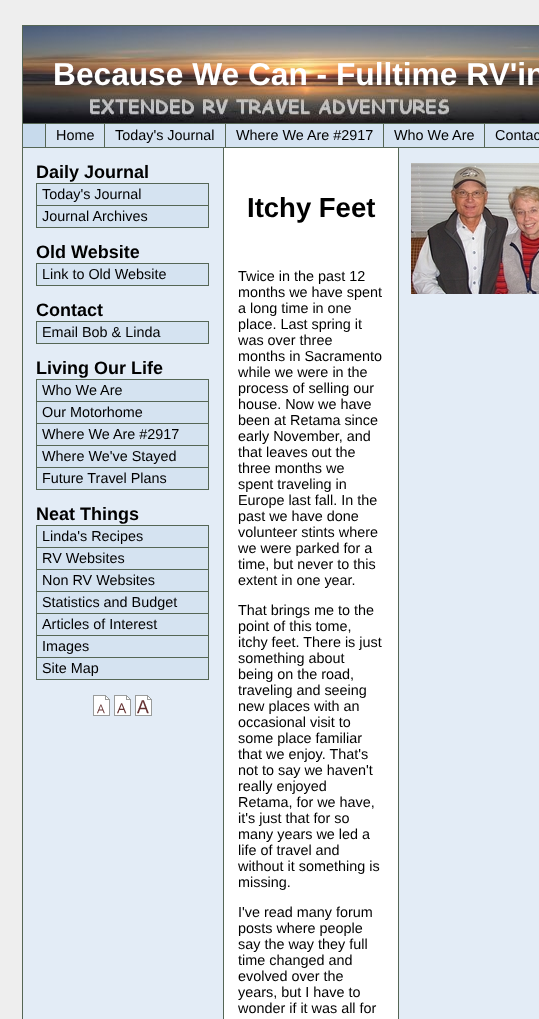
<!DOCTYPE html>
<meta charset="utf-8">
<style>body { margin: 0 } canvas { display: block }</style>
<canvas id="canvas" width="539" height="1019"></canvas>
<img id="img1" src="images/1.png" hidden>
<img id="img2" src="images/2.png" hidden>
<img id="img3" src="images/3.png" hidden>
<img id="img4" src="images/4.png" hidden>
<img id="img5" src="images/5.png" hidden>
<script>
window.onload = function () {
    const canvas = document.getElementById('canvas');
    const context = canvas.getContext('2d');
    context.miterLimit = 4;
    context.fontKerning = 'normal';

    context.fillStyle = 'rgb(238, 238, 238)';
    context.fillRect(0, 0, 539, 1019);
    context.fillStyle = 'rgb(85, 102, 85)';
    context.fillRect(22, 25, 1, 994);
    context.drawImage(document.getElementById('img1'), 23, 26, 516, 97);
    context.fillRect(23, 25, 516, 1);
    context.fillRect(23, 123, 516, 1);
    context.fillStyle = 'rgb(199, 218, 236)';
    context.fillRect(23, 124, 22, 23);
    context.fillStyle = 'rgb(85, 102, 85)';
    context.fillRect(23, 147, 516, 1);
    context.fillStyle = 'rgb(213, 227, 241)';
    context.fillRect(46, 124, 58, 23);
    context.fillStyle = 'rgb(85, 102, 85)';
    context.fillRect(45, 124, 1, 23);
    context.fillRect(104, 124, 1, 23);
    context.fillStyle = 'rgb(213, 227, 241)';
    context.fillRect(105, 124, 120, 23);
    context.fillRect(226, 124, 157, 23);
    context.fillStyle = 'rgb(85, 102, 85)';
    context.fillRect(225, 124, 1, 23);
    context.fillStyle = 'rgb(213, 227, 241)';
    context.fillRect(384, 124, 100, 23);
    context.fillStyle = 'rgb(85, 102, 85)';
    context.fillRect(383, 124, 1, 23);
    context.fillRect(484, 124, 1, 23);
    context.fillStyle = 'rgb(213, 227, 241)';
    context.fillRect(485, 124, 54, 23);
    context.fillStyle = 'rgb(255, 255, 255)';
    context.fillRect(224, 148, 174, 871);
    context.fillStyle = 'rgb(227, 236, 246)';
    context.fillRect(399, 148, 140, 871);
    context.fillRect(23, 148, 200, 871);
    context.fillStyle = 'rgb(85, 102, 85)';
    context.fillRect(398, 148, 1, 871);
    context.fillRect(223, 148, 1, 871);
    context.fillRect(36, 183, 173, 1);
    context.fillRect(208, 183, 1, 45);
    context.fillRect(36, 183, 1, 45);
    context.fillRect(37, 205, 171, 1);
    context.fillStyle = 'rgb(213, 227, 241)';
    context.fillRect(37, 184, 171, 21);
    context.fillStyle = 'rgb(85, 102, 85)';
    context.fillRect(37, 227, 171, 1);
    context.fillStyle = 'rgb(213, 227, 241)';
    context.fillRect(37, 206, 171, 21);
    context.fillStyle = 'rgb(85, 102, 85)';
    context.fillRect(36, 263, 173, 1);
    context.fillRect(208, 263, 1, 23);
    context.fillRect(36, 263, 1, 23);
    context.fillRect(37, 285, 171, 1);
    context.fillStyle = 'rgb(213, 227, 241)';
    context.fillRect(37, 264, 171, 21);
    context.fillStyle = 'rgb(85, 102, 85)';
    context.fillRect(36, 321, 173, 1);
    context.fillRect(208, 321, 1, 23);
    context.fillRect(36, 321, 1, 23);
    context.fillRect(37, 343, 171, 1);
    context.fillStyle = 'rgb(213, 227, 241)';
    context.fillRect(37, 322, 171, 21);
    context.fillStyle = 'rgb(85, 102, 85)';
    context.fillRect(36, 379, 173, 1);
    context.fillRect(208, 379, 1, 111);
    context.fillRect(36, 379, 1, 111);
    context.fillRect(37, 401, 171, 1);
    context.fillStyle = 'rgb(213, 227, 241)';
    context.fillRect(37, 380, 171, 21);
    context.fillStyle = 'rgb(85, 102, 85)';
    context.fillRect(37, 423, 171, 1);
    context.fillStyle = 'rgb(213, 227, 241)';
    context.fillRect(37, 402, 171, 21);
    context.fillStyle = 'rgb(85, 102, 85)';
    context.fillRect(37, 445, 171, 1);
    context.fillStyle = 'rgb(213, 227, 241)';
    context.fillRect(37, 424, 171, 21);
    context.fillStyle = 'rgb(85, 102, 85)';
    context.fillRect(37, 467, 171, 1);
    context.fillStyle = 'rgb(213, 227, 241)';
    context.fillRect(37, 446, 171, 21);
    context.fillStyle = 'rgb(85, 102, 85)';
    context.fillRect(37, 489, 171, 1);
    context.fillStyle = 'rgb(213, 227, 241)';
    context.fillRect(37, 468, 171, 21);
    context.fillStyle = 'rgb(85, 102, 85)';
    context.fillRect(36, 525, 173, 1);
    context.fillRect(208, 525, 1, 155);
    context.fillRect(36, 525, 1, 155);
    context.fillRect(37, 547, 171, 1);
    context.fillStyle = 'rgb(213, 227, 241)';
    context.fillRect(37, 526, 171, 21);
    context.fillStyle = 'rgb(85, 102, 85)';
    context.fillRect(37, 569, 171, 1);
    context.fillStyle = 'rgb(213, 227, 241)';
    context.fillRect(37, 548, 171, 21);
    context.fillStyle = 'rgb(85, 102, 85)';
    context.fillRect(37, 591, 171, 1);
    context.fillStyle = 'rgb(213, 227, 241)';
    context.fillRect(37, 570, 171, 21);
    context.fillStyle = 'rgb(85, 102, 85)';
    context.fillRect(37, 613, 171, 1);
    context.fillStyle = 'rgb(213, 227, 241)';
    context.fillRect(37, 592, 171, 21);
    context.fillStyle = 'rgb(85, 102, 85)';
    context.fillRect(37, 635, 171, 1);
    context.fillStyle = 'rgb(213, 227, 241)';
    context.fillRect(37, 614, 171, 21);
    context.fillStyle = 'rgb(85, 102, 85)';
    context.fillRect(37, 657, 171, 1);
    context.fillStyle = 'rgb(213, 227, 241)';
    context.fillRect(37, 636, 171, 21);
    context.fillStyle = 'rgb(85, 102, 85)';
    context.fillRect(37, 679, 171, 1);
    context.fillStyle = 'rgb(213, 227, 241)';
    context.fillRect(37, 658, 171, 21);
    context.drawImage(document.getElementById('img2'), 93, 695, 17, 21);
    context.drawImage(document.getElementById('img3'), 114, 695, 17, 21);
    context.drawImage(document.getElementById('img4'), 135, 695, 17, 21);
    context.drawImage(document.getElementById('img5'), 411, 163, 128, 131);
    context.font = 'bold 31.7px Liberation Sans';
    context.fillStyle = 'rgb(255, 255, 255)';
    context.fillText('Because We Can - Fulltime RV\'in', 53, 85);
    context.font = '14.4px Liberation Sans';
    context.fillStyle = 'rgb(0, 0, 0)';
    context.fillText('Home', 56, 140);
    context.fillText('Today\'s Journal', 115, 140);
    context.fillText('Where We Are #2917', 236, 140);
    context.fillText('Who We Are', 394, 140);
    context.fillText('Contac', 495, 140);
    context.font = 'bold 18px Liberation Sans';
    context.fillText('Daily Journal', 36, 178);
    context.font = '14.4px Liberation Sans';
    context.fillText('Today\'s Journal', 42, 199);
    context.fillText('Journal Archives', 42, 221);
    context.font = 'bold 18px Liberation Sans';
    context.fillText('Old Website', 36, 258);
    context.font = '14.4px Liberation Sans';
    context.fillText('Link to Old Website', 42, 279);
    context.font = 'bold 18px Liberation Sans';
    context.fillText('Contact', 36, 316);
    context.font = '14.4px Liberation Sans';
    context.fillText('Email Bob & Linda', 42, 337);
    context.font = 'bold 18px Liberation Sans';
    context.fillText('Living Our Life', 36, 374);
    context.font = '14.4px Liberation Sans';
    context.fillText('Who We Are', 42, 395);
    context.fillText('Our Motorhome', 42, 417);
    context.fillText('Where We Are #2917', 42, 439);
    context.fillText('Where We\'ve Stayed', 42, 461);
    context.fillText('Future Travel Plans', 42, 483);
    context.font = 'bold 18px Liberation Sans';
    context.fillText('Neat Things', 36, 520);
    context.font = '14.4px Liberation Sans';
    context.fillText('Linda\'s Recipes', 42, 541);
    context.fillText('RV Websites', 42, 563);
    context.fillText('Non RV Websites', 42, 585);
    context.fillText('Statistics and Budget', 42, 607);
    context.fillText('Articles of Interest', 42, 629);
    context.fillText('Images', 42, 651);
    context.fillText('Site Map', 42, 673);
    context.font = 'bold 27.5px Liberation Sans';
    context.fillText('Itchy Feet', 247, 217);
    context.font = '14.4px Liberation Sans';
    context.fillText('Twice in the past 12', 238, 281);
    context.fillText('months we have spent', 238, 297);
    context.fillText('a long time in one', 238, 313);
    context.fillText('place. Last spring it', 238, 329);
    context.fillText('was over three', 238, 345);
    context.fillText('months in Sacramento', 238, 361);
    context.fillText('while we were in the', 238, 377);
    context.fillText('process of selling our', 238, 393);
    context.fillText('house. Now we have', 238, 409);
    context.fillText('been at Retama since', 238, 425);
    context.fillText('early November, and', 238, 441);
    context.fillText('that leaves out the', 238, 457);
    context.fillText('three months we', 238, 473);
    context.fillText('spent traveling in', 238, 489);
    context.fillText('Europe last fall. In the', 238, 505);
    context.fillText('past we have done', 238, 521);
    context.fillText('volunteer stints where', 238, 537);
    context.fillText('we were parked for a', 238, 553);
    context.fillText('time, but never to this', 238, 569);
    context.fillText('extent in one year.', 238, 585);
    context.fillText('That brings me to the', 238, 615);
    context.fillText('point of this tome,', 238, 631);
    context.fillText('itchy feet. There is just', 238, 647);
    context.fillText('something about', 238, 663);
    context.fillText('being on the road,', 238, 679);
    context.fillText('traveling and seeing', 238, 695);
    context.fillText('new places with an', 238, 711);
    context.fillText('occasional visit to', 238, 727);
    context.fillText('some place familiar', 238, 743);
    context.fillText('that we enjoy. That\'s', 238, 759);
    context.fillText('not to say we haven\'t', 238, 775);
    context.fillText('really enjoyed', 238, 791);
    context.fillText('Retama, for we have,', 238, 807);
    context.fillText('it\'s just that for so', 238, 823);
    context.fillText('many years we led a', 238, 839);
    context.fillText('life of travel and', 238, 855);
    context.fillText('without it something is', 238, 871);
    context.fillText('missing.', 238, 887);
    context.fillText('I\'ve read many forum', 238, 917);
    context.fillText('posts where people', 238, 933);
    context.fillText('say the way they full', 238, 949);
    context.fillText('time changed and', 238, 965);
    context.fillText('evolved over the', 238, 981);
    context.fillText('years, but I have to', 238, 997);
    context.fillText('wonder if it was all for', 238, 1013);
};
</script>
